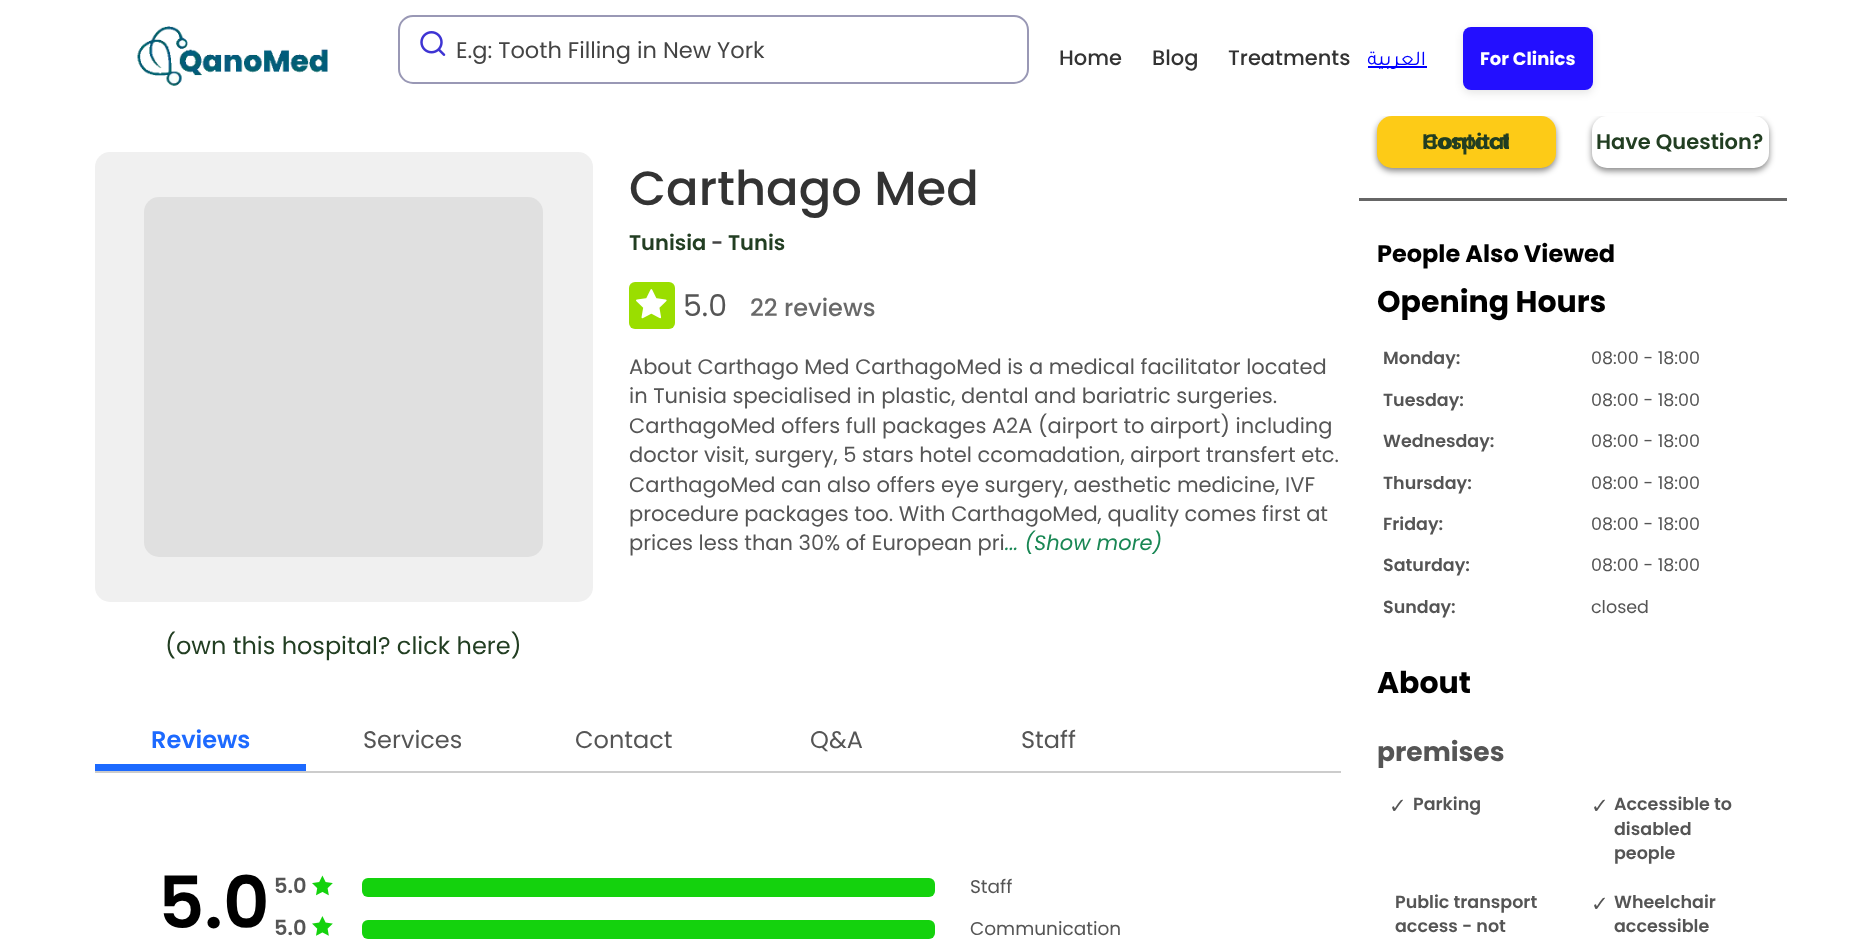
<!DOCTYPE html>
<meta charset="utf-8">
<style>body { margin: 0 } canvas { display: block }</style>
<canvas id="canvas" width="1862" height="944"></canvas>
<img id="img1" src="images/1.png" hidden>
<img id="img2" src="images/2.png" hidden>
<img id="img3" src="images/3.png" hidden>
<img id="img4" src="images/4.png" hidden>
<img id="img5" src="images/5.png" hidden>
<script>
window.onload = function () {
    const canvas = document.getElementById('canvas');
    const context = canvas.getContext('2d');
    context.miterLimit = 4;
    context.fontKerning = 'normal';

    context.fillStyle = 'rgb(255, 255, 255)';
    context.fillRect(0, 0, 1862, 944);
    context.fillStyle = 'rgba(0, 0, 0, 0.47)';
    context.filter = 'blur(3px)';
    context.beginPath();
    context.roundRect(1377, 119, 179, 52, 15);
    context.fill();
    context.filter = 'none';
    context.filter = 'blur(3px)';
    context.beginPath();
    context.roundRect(1592, 119, 177, 52, 15);
    context.fill();
    context.filter = 'none';
    context.fillStyle = 'rgb(255, 255, 255)';
    context.fillRect(1382, 113, 382, 3);
    context.drawImage(document.getElementById('img1'), 137, 26, 191, 60);
    context.beginPath();
    context.roundRect(399, 16, 629, 67, 14);
    context.strokeStyle = 'rgb(153, 152, 181)';
    context.lineWidth = 2;
    context.stroke();
    context.drawImage(document.getElementById('img2'), 420, 31, 26, 25);
    context.fillStyle = 'rgb(0, 0, 255)';
    context.fillRect(1368, 66, 59, 2);
    context.fillStyle = 'rgba(0, 0, 0, 0.1)';
    context.filter = 'blur(4px)';
    context.beginPath();
    context.roundRect(1463, 30, 130, 63, 8);
    context.fill();
    context.filter = 'none';
    context.fillStyle = 'rgb(35, 15, 255)';
    context.beginPath();
    context.roundRect(1463, 27, 130, 63, 8);
    context.fill();
    context.fillStyle = 'rgb(154, 222, 0)';
    context.beginPath();
    context.roundRect(629, 282, 46, 47, 6);
    context.fill();
    context.drawImage(document.getElementById('img3'), 636, 289, 31, 30);
    context.fillStyle = 'rgb(240, 240, 240)';
    context.beginPath();
    context.roundRect(95, 152, 498, 450, 15);
    context.fill();
    context.fillStyle = 'rgb(224, 224, 224)';
    context.beginPath();
    context.roundRect(144, 197, 399, 360, 15);
    context.fill();
    context.fillStyle = 'rgb(204, 204, 204)';
    context.fillRect(95, 771, 1246, 2);
    context.fillStyle = 'rgb(29, 106, 255)';
    context.fillRect(95, 764, 211, 7);
    context.drawImage(document.getElementById('img4'), 312, 875, 21, 21);
    context.fillStyle = 'rgb(20, 210, 13)';
    context.beginPath();
    context.roundRect(362, 878, 573, 19, 6);
    context.fill();
    context.drawImage(document.getElementById('img5'), 312, 916, 21, 20);
    context.beginPath();
    context.roundRect(362, 920, 573, 19, 6);
    context.fill();
    context.fillStyle = 'rgb(102, 102, 102)';
    context.fillRect(1359, 198, 428, 3);
    context.fillStyle = 'rgb(253, 203, 23)';
    context.beginPath();
    context.roundRect(1377, 116, 179, 52, 15);
    context.fill();
    context.fillStyle = 'rgb(255, 255, 255)';
    context.beginPath();
    context.roundRect(1592, 116, 177, 52, 15);
    context.fill();
    context.font = '22.5px Poppins';
    context.fillStyle = 'rgb(68, 68, 68)';
    context.fillText('E.g: Tooth Filling in New York', 456, 58);
    context.font = '500 21px Poppins';
    context.fillStyle = 'rgb(51, 51, 51)';
    context.fillText('Home', 1059, 65);
    context.fillText('Blog', 1152, 65);
    context.fillText('Treatments', 1228, 65);
    context.direction = 'rtl';
    context.font = '21px Tajawal';
    context.fillStyle = 'rgb(0, 0, 255)';
    context.fillText('العربية', 1426, 65);
    context.direction = 'ltr';
    context.font = 'bold 18px Poppins';
    context.fillStyle = 'rgb(255, 255, 255)';
    context.fillText('For Clinics', 1480, 65);
    context.font = '500 48px Poppins';
    context.fillStyle = 'rgb(51, 51, 51)';
    context.fillText('Carthago Med', 629, 205);
    context.font = '600 21px Poppins';
    context.fillStyle = 'rgb(34, 62, 34)';
    context.fillText('Tunisia', 629, 250);
    context.fillStyle = 'rgb(68, 68, 68)';
    context.fillText('-', 711, 250);
    context.fillStyle = 'rgb(34, 62, 34)';
    context.fillText('Tunis', 728, 250);
    context.font = '30px Poppins';
    context.fillStyle = 'rgb(85, 85, 85)';
    context.fillText('5.0', 683, 316);
    context.font = '500 24px Poppins';
    context.fillStyle = 'rgb(105, 105, 105)';
    context.fillText('22 reviews', 750, 316);
    context.font = '21px Poppins';
    context.fillStyle = 'rgb(85, 85, 85)';
    context.fillText('About Carthago Med CarthagoMed is a medical facilitator located', 629, 374);
    context.fillText('in Tunisia specialised in plastic, dental and bariatric surgeries.', 629, 403);
    context.fillText('CarthagoMed offers full packages A2A (airport to airport) including', 629, 433);
    context.fillText('doctor visit, surgery, 5 stars hotel ccomadation, airport transfert etc.', 629, 462);
    context.fillText('CarthagoMed can also offers eye surgery, aesthetic medicine, IVF', 629, 492);
    context.fillText('procedure packages too. With CarthagoMed, quality comes first at', 629, 521);
    context.fillText('prices less than 30% of European pri', 629, 550);
    context.font = 'italic 21px Poppins';
    context.fillStyle = 'rgb(25, 135, 84)';
    context.fillText('... (Show more)', 1005, 550);
    context.font = '24px Poppins';
    context.fillStyle = 'rgb(34, 62, 34)';
    context.fillText('(own this hospital? click here)', 165, 654);
    context.font = '600 24px Poppins';
    context.fillStyle = 'rgb(29, 106, 255)';
    context.fillText('Reviews', 151, 748);
    context.font = '24px Poppins';
    context.fillStyle = 'rgb(85, 85, 85)';
    context.fillText('Services', 363, 748);
    context.fillText('Contact', 575, 748);
    context.fillText('Q&A', 810, 748);
    context.fillText('Staff', 1021, 748);
    context.font = '600 72px Poppins';
    context.fillStyle = 'rgb(0, 0, 0)';
    context.fillText('5.0', 158, 928);
    context.font = '600 21px Poppins';
    context.fillStyle = 'rgb(85, 85, 85)';
    context.fillText('5.0', 274, 893);
    context.font = '18.5px Poppins';
    context.fillText('Staff', 970, 893);
    context.font = '600 21px Poppins';
    context.fillText('5.0', 274, 935);
    context.font = '18.5px Poppins';
    context.fillText('Communication', 970, 935);
    context.font = '600 21px Poppins';
    context.fillStyle = 'rgb(34, 62, 34)';
    context.fillText('Contact', 1423, 149);
    context.fillText('Hospital', 1422, 149);
    context.fillText('Have Question?', 1596, 149);
    context.font = 'bold 24px Poppins';
    context.fillStyle = 'rgb(0, 0, 0)';
    context.fillText('People Also Viewed', 1377, 262);
    context.font = 'bold 30px Poppins';
    context.fillText('Opening Hours', 1377, 312);
    context.font = '600 17.5px Poppins';
    context.fillStyle = 'rgb(85, 85, 85)';
    context.fillText('Monday:', 1383, 364);
    context.font = '17.5px Poppins';
    context.fillText('08:00 - 18:00', 1591, 364);
    context.font = '600 17.5px Poppins';
    context.fillText('Tuesday:', 1383, 406);
    context.font = '17.5px Poppins';
    context.fillText('08:00 - 18:00', 1591, 406);
    context.font = '600 17.5px Poppins';
    context.fillText('Wednesday:', 1383, 447);
    context.font = '17.5px Poppins';
    context.fillText('08:00 - 18:00', 1591, 447);
    context.font = '600 17.5px Poppins';
    context.fillText('Thursday:', 1383, 489);
    context.font = '17.5px Poppins';
    context.fillText('08:00 - 18:00', 1591, 489);
    context.font = '600 17.5px Poppins';
    context.fillText('Friday:', 1383, 530);
    context.font = '17.5px Poppins';
    context.fillText('08:00 - 18:00', 1591, 530);
    context.font = '600 17.5px Poppins';
    context.fillText('Saturday:', 1383, 571);
    context.font = '17.5px Poppins';
    context.fillText('08:00 - 18:00', 1591, 571);
    context.font = '600 17.5px Poppins';
    context.fillText('Sunday:', 1383, 613);
    context.font = '17.5px Poppins';
    context.fillText('closed', 1591, 613);
    context.font = 'bold 30px Poppins';
    context.fillStyle = 'rgb(0, 0, 0)';
    context.fillText('About', 1377, 693);
    context.font = 'bold 26.5px Poppins';
    context.fillStyle = 'rgb(85, 85, 85)';
    context.fillText('premises', 1377, 761);
    context.font = '21px DejaVu Sans';
    context.fillText('✓', 1389, 813);
    context.font = '600 17.5px Poppins';
    context.fillText('Parking', 1413, 810);
    context.font = '21px DejaVu Sans';
    context.fillText('✓', 1591, 813);
    context.font = '600 17.5px Poppins';
    context.fillText('Accessible to', 1614, 810);
    context.fillText('disabled', 1614, 835);
    context.fillText('people', 1614, 859);
    context.fillText('Public transport', 1395, 908);
    context.fillText('access - not', 1395, 932);
    context.font = '21px DejaVu Sans';
    context.fillText('✓', 1591, 911);
    context.font = '600 17.5px Poppins';
    context.fillText('Wheelchair', 1614, 908);
    context.fillText('accessible', 1614, 932);
};
</script>
